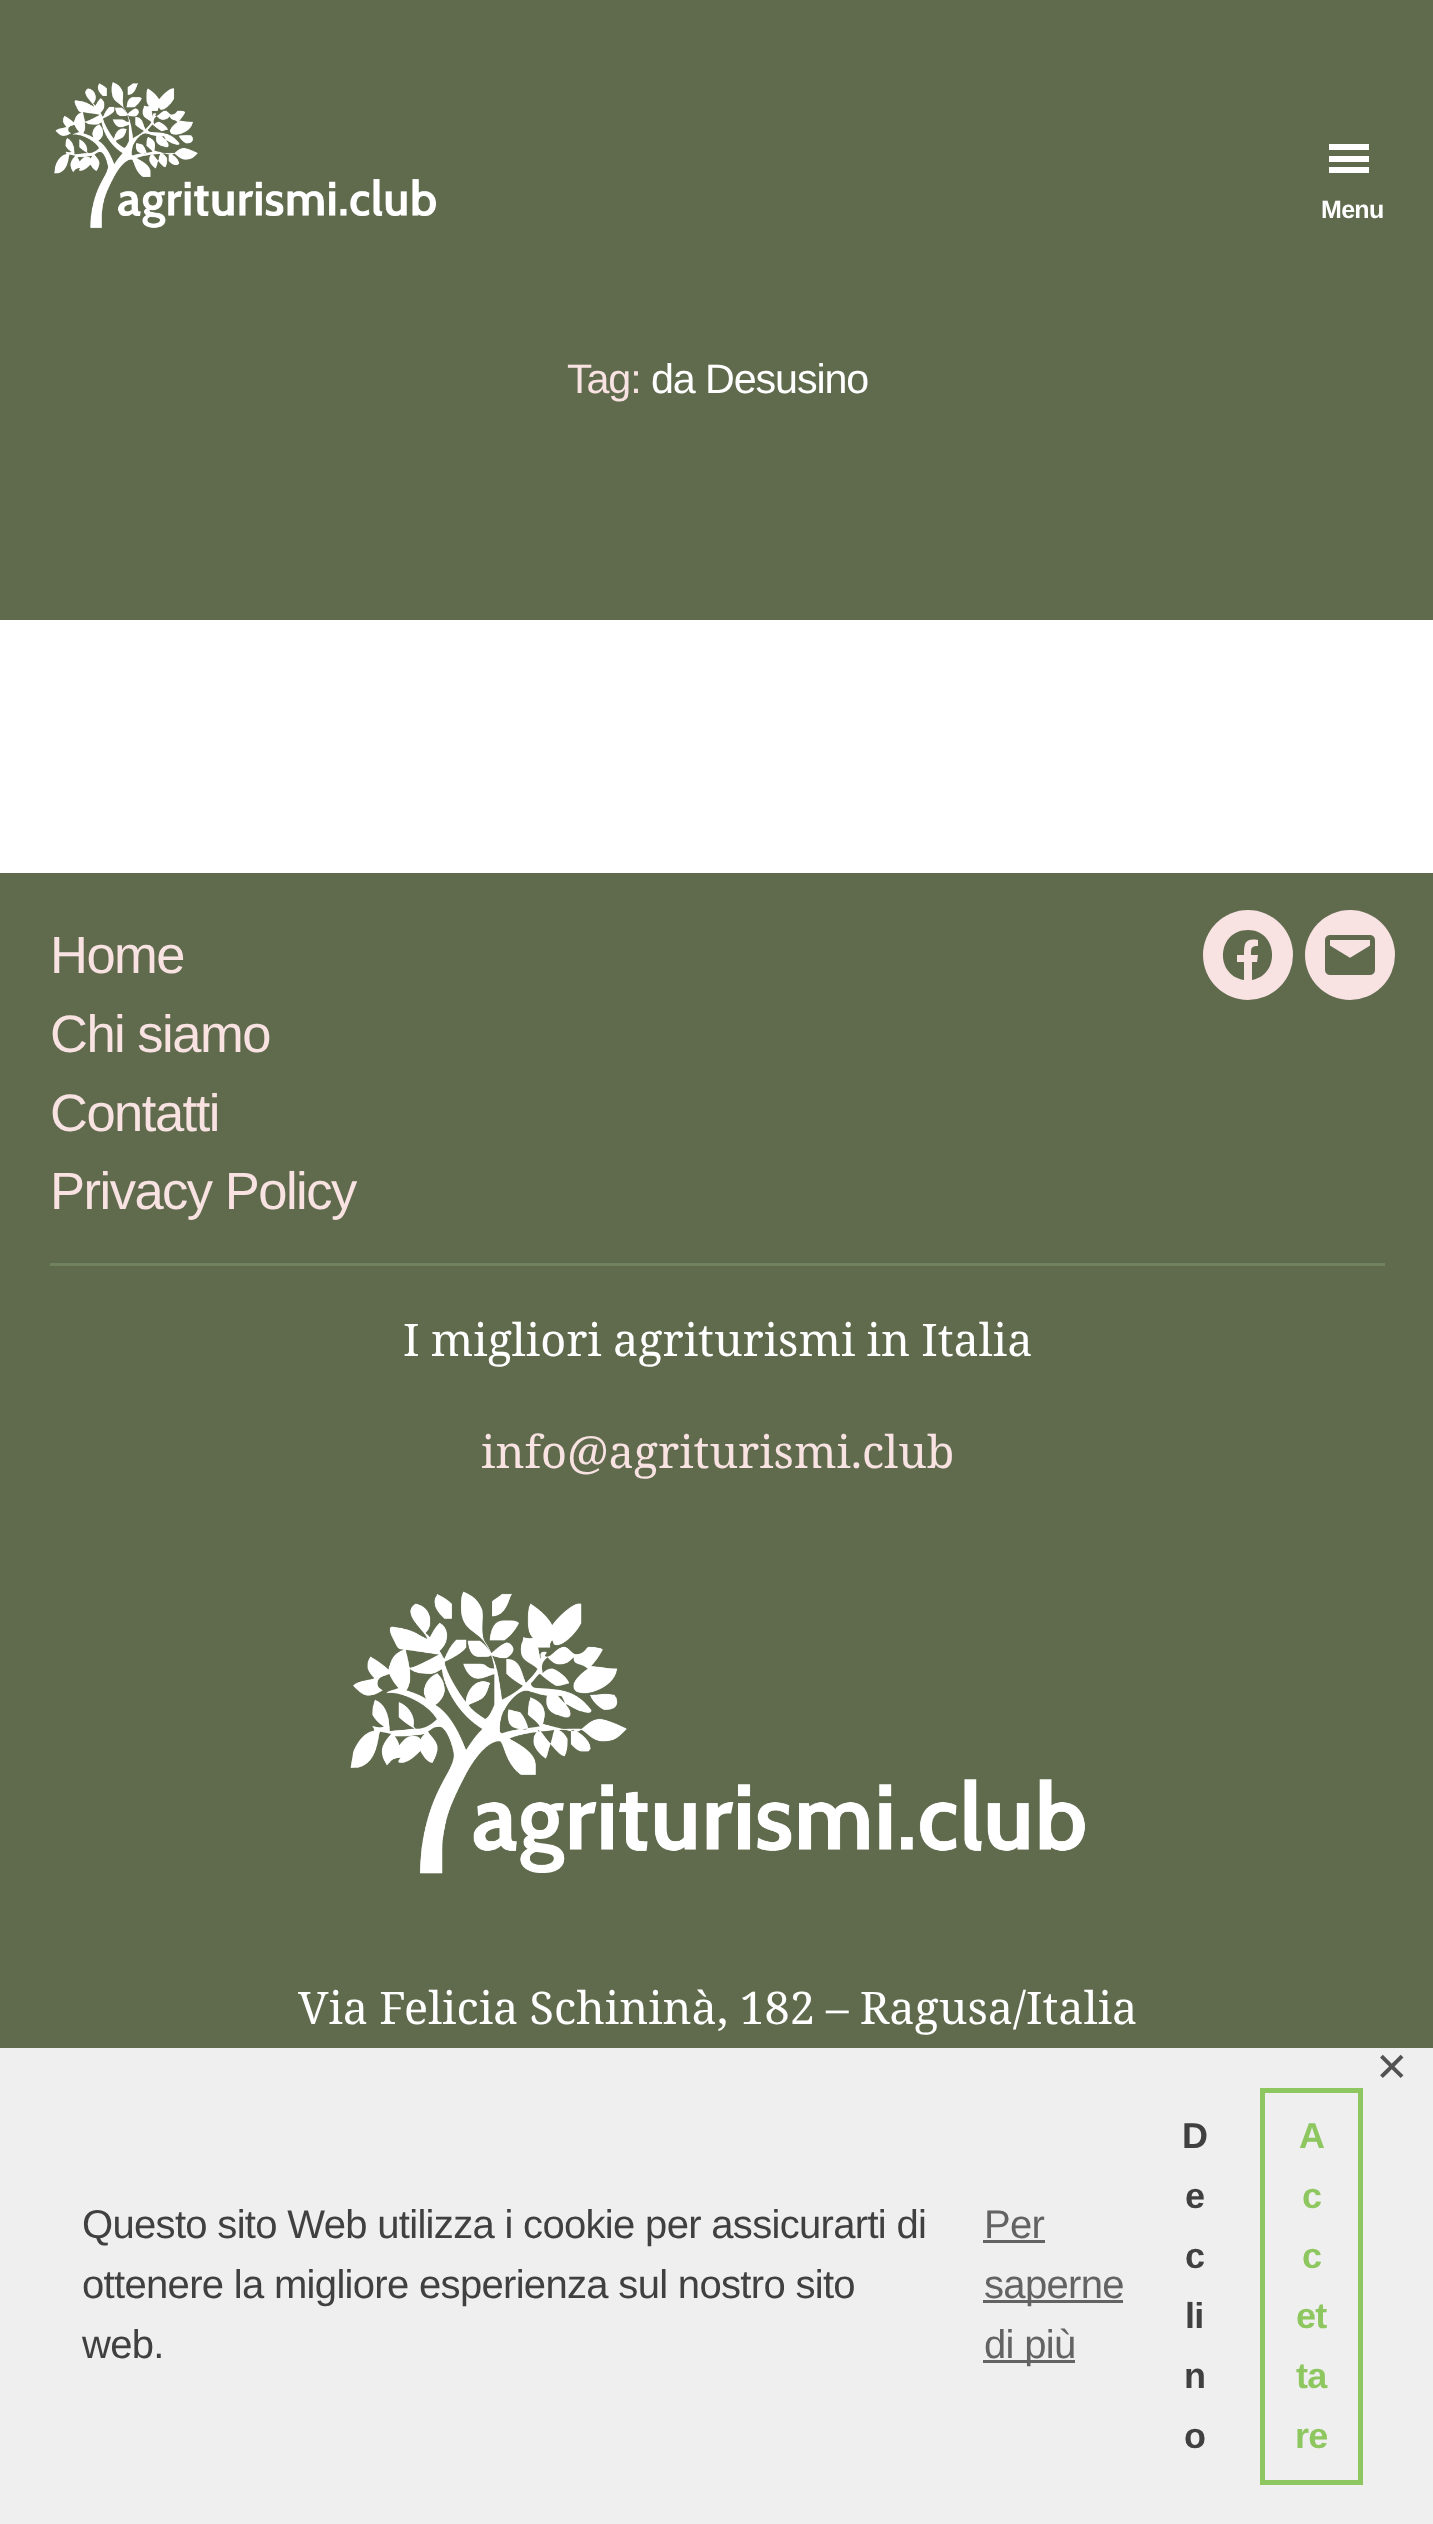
<!DOCTYPE html>
<meta charset="utf-8">
<style>body { margin: 0 } canvas { display: block }</style>
<canvas id="canvas" width="1433" height="2524"></canvas>
<img id="img1" src="images/1.png" hidden>
<img id="img2" src="images/2.png" hidden>
<img id="img3" src="images/3.png" hidden>
<script>
window.onload = function () {
    const canvas = document.getElementById('canvas');
    const context = canvas.getContext('2d');
    context.miterLimit = 4;
    context.fontKerning = 'normal';

    context.fillStyle = 'rgb(255, 255, 255)';
    context.fillRect(0, 0, 1433, 2524);
    context.fillStyle = 'rgb(96, 107, 78)';
    context.fillRect(0, 0, 1433, 620);
    context.drawImage(document.getElementById('img1'), 54, 82, 382, 147);
    context.fillStyle = 'rgb(255, 255, 255)';
    context.beginPath();
    context.moveTo(1329, 173);
    context.lineTo(1369, 173);
    context.lineTo(1369, 167);
    context.lineTo(1329, 167);
    context.closePath();
    context.moveTo(1329, 144);
    context.lineTo(1329, 150);
    context.lineTo(1369, 150);
    context.lineTo(1369, 144);
    context.closePath();
    context.moveTo(1329, 162);
    context.lineTo(1369, 162);
    context.lineTo(1369, 156);
    context.lineTo(1329, 156);
    context.closePath();
    context.fill();
    context.fillStyle = 'rgb(96, 107, 78)';
    context.fillRect(0, 873, 1433, 1175);
    context.fillStyle = 'rgb(113, 130, 94)';
    context.fillRect(50, 1263, 1335, 3);
    context.fillStyle = 'rgb(248, 226, 226)';
    context.beginPath();
    context.arc(1248, 955, 45, 0, 2 * Math.PI);
    context.fill();
    context.fillStyle = 'rgb(96, 107, 78)';
    context.beginPath();
    context.moveTo(1248, 930);
    context.bezierCurveTo(1217, 930, 1214, 975, 1244, 980);
    context.lineTo(1244, 962);
    context.lineTo(1237, 962);
    context.lineTo(1237, 955);
    context.lineTo(1244, 955);
    context.bezierCurveTo(1244, 943, 1245, 938, 1258, 940);
    context.lineTo(1258, 946);
    context.bezierCurveTo(1251, 946, 1251, 948, 1251, 955);
    context.lineTo(1258, 955);
    context.lineTo(1257, 962);
    context.lineTo(1252, 962);
    context.lineTo(1252, 980);
    context.bezierCurveTo(1281, 975, 1278, 930, 1248, 930);
    context.closePath();
    context.fill();
    context.fillStyle = 'rgb(248, 226, 226)';
    context.beginPath();
    context.arc(1350, 955, 45, 0, 2 * Math.PI);
    context.fill();
    context.drawImage(document.getElementById('img2'), 1325, 935, 50, 40);
    context.drawImage(document.getElementById('img3'), 350, 1591, 735, 283);
    context.fillStyle = 'rgb(239, 239, 239)';
    context.fillRect(0, 2048, 1433, 476);
    context.fillStyle = 'rgb(99, 99, 99)';
    context.fillRect(983, 2240, 62, 3);
    context.fillRect(983, 2300, 140, 3);
    context.fillRect(983, 2360, 92, 3);
    context.strokeStyle = 'rgb(142, 199, 96)';
    context.lineWidth = 5;
    context.strokeRect(1262.5, 2090.5, 98, 392);
    context.letterSpacing = '-0.68px';
    context.font = 'bold 25px Liberation Sans';
    context.fillStyle = 'rgb(255, 255, 255)';
    context.fillText('Menu', 1321, 218);
    context.letterSpacing = '-1.1px';
    context.font = '41.25px Liberation Sans';
    context.fillStyle = 'rgb(248, 226, 226)';
    context.fillText('Tag:', 567, 393);
    context.fillStyle = 'rgb(255, 255, 255)';
    context.fillText('da Desusino', 651, 393);
    context.letterSpacing = '-1.5px';
    context.font = '52.5px Liberation Sans';
    context.fillStyle = 'rgb(248, 226, 226)';
    context.fillText('Home', 50, 973);
    context.fillText('Chi siamo', 50, 1052);
    context.fillText('Contatti', 50, 1131);
    context.fillText('Privacy Policy', 50, 1209);
    context.letterSpacing = '0px';
    context.wordSpacing = '-0.5px';
    context.font = '45px Noto Serif';
    context.fillStyle = 'rgb(255, 255, 255)';
    context.fillText('I migliori agriturismi in Italia', 403, 1356);
    context.wordSpacing = '0px';
    context.fillStyle = 'rgb(248, 226, 226)';
    context.fillText('info@agriturismi.club', 481, 1468);
    context.wordSpacing = '-0.5px';
    context.fillStyle = 'rgb(255, 255, 255)';
    context.fillText('Via Felicia Schininà, 182 – Ragusa/Italia', 298, 2024);
    context.letterSpacing = '-0.68px';
    context.wordSpacing = '0px';
    context.font = '40px DejaVu Sans';
    context.fillStyle = 'rgb(82, 82, 82)';
    context.fillText('✕', 1375, 2081);
    context.font = '40px Liberation Sans';
    context.fillStyle = 'rgb(64, 64, 64)';
    context.fillText('Questo sito Web utilizza i cookie per assicurarti di', 82, 2238);
    context.fillText('ottenere la migliore esperienza sul nostro sito', 82, 2298);
    context.fillText('web.', 82, 2358);
    context.fillStyle = 'rgb(99, 99, 99)';
    context.fillText('Per', 984, 2238);
    context.fillText('saperne', 984, 2298);
    context.fillText('di più', 984, 2358);
    context.font = 'bold 36px Liberation Sans';
    context.fillStyle = 'rgb(64, 64, 64)';
    context.fillText('D', 1182, 2148);
    context.fillText('e', 1185, 2208);
    context.fillText('c', 1185, 2268);
    context.fillText('li', 1185, 2328);
    context.fillText('n', 1184, 2388);
    context.fillText('o', 1184, 2448);
    context.fillStyle = 'rgb(142, 199, 96)';
    context.fillText('A', 1299, 2148);
    context.fillText('c', 1302, 2208);
    context.fillText('c', 1302, 2268);
    context.fillText('et', 1296, 2328);
    context.fillText('ta', 1296, 2388);
    context.fillText('re', 1295, 2448);
};
</script>
